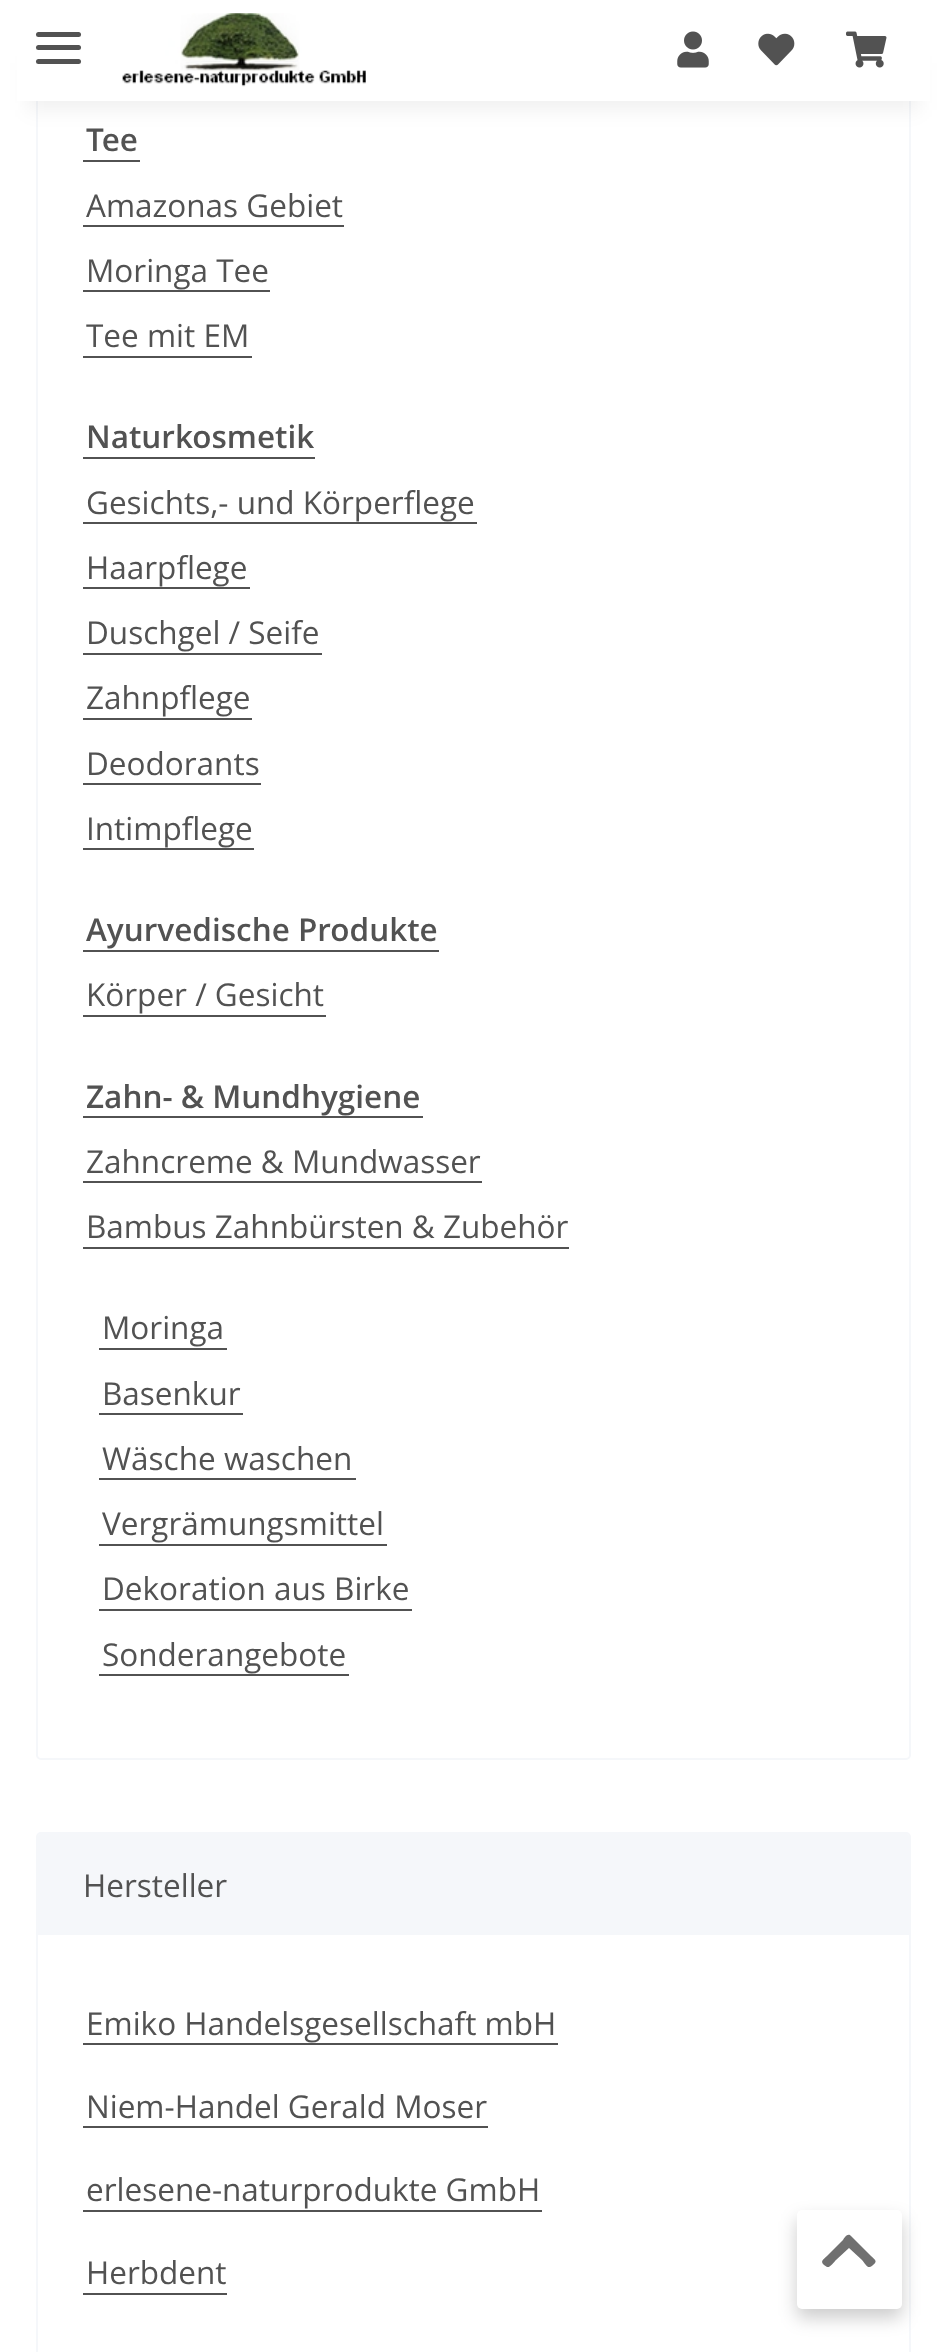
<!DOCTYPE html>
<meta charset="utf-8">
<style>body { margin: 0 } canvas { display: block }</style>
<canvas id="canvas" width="947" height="2352"></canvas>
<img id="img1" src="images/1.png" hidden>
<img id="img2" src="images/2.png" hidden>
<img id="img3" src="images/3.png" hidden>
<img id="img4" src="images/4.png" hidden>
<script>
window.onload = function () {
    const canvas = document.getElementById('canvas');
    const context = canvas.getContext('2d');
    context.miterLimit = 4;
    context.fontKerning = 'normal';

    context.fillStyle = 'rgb(255, 255, 255)';
    context.fillRect(0, 0, 947, 2352);
    context.beginPath();
    context.roundRect(37, -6, 873, 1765, 4);
    context.strokeStyle = 'rgb(245, 247, 250)';
    context.lineWidth = 2;
    context.stroke();
    context.fillStyle = 'rgba(0, 0, 0, 0.06)';
    context.filter = 'blur(10px)';
    context.beginPath();
    context.rect(27, 63, 893, 47);
    context.fill();
    context.filter = 'none';
    context.fillStyle = 'rgb(255, 255, 255)';
    context.fillRect(17, 0, 913, 101);
    context.fillStyle = 'rgb(82, 82, 82)';
    context.beginPath();
    context.roundRect(36, 45, 45, 5, 2.5);
    context.fill();
    context.beginPath();
    context.roundRect(36, 32, 45, 5, 2.5);
    context.fill();
    context.beginPath();
    context.roundRect(36, 59, 45, 5, 2.5);
    context.fill();
    context.drawImage(document.getElementById('img1'), 122, 13, 244, 74);
    context.drawImage(document.getElementById('img2'), 677, 31, 32, 37);
    context.drawImage(document.getElementById('img3'), 758, 33, 37, 33);
    context.drawImage(document.getElementById('img4'), 846, 31, 41, 37);
    context.fillRect(83, 160, 57, 2);
    context.fillRect(83, 225, 261, 2);
    context.fillRect(83, 290, 187, 2);
    context.fillRect(83, 356, 169, 2);
    context.fillRect(83, 457, 232, 2);
    context.fillRect(83, 522, 394, 2);
    context.fillRect(83, 587, 167, 2);
    context.fillRect(83, 653, 239, 2);
    context.fillRect(83, 718, 169, 2);
    context.fillRect(83, 783, 178, 2);
    context.fillRect(83, 848, 171, 2);
    context.fillRect(83, 950, 356, 2);
    context.fillRect(83, 1015, 243, 2);
    context.fillRect(83, 1116, 340, 2);
    context.fillRect(83, 1181, 399, 2);
    context.fillRect(83, 1247, 486, 2);
    context.fillRect(99, 1348, 128, 2);
    context.fillRect(99, 1413, 144, 2);
    context.fillRect(99, 1478, 257, 2);
    context.fillRect(99, 1544, 288, 2);
    context.fillRect(99, 1609, 313, 2);
    context.fillRect(99, 1674, 250, 2);
    context.beginPath();
    context.roundRect(37, 1833, 873, 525, 4);
    context.stroke();
    context.fillStyle = 'rgb(245, 247, 250)';
    context.beginPath();
    context.roundRect(38, 1834, 871, 101, [2, 2, 0, 0]);
    context.fill();
    context.fillStyle = 'rgb(82, 82, 82)';
    context.fillRect(83, 2043, 475, 2);
    context.fillRect(83, 2126, 405, 2);
    context.fillRect(83, 2210, 459, 2);
    context.fillRect(83, 2293, 144, 2);
    context.fillStyle = 'rgba(0, 0, 0, 0.2)';
    context.filter = 'blur(9px)';
    context.beginPath();
    context.roundRect(797, 2219, 105, 99, 5);
    context.fill();
    context.filter = 'none';
    context.fillStyle = 'rgb(255, 255, 255)';
    context.beginPath();
    context.roundRect(797, 2210, 105, 99, 5);
    context.fill();
    context.fillStyle = 'rgb(112, 112, 112)';
    context.beginPath();
    context.moveTo(851, 2236);
    context.lineTo(871, 2256);
    context.bezierCurveTo(875, 2260, 878, 2261, 873, 2265);
    context.bezierCurveTo(868, 2270, 866, 2265, 862, 2260);
    context.lineTo(849, 2248);
    context.lineTo(836, 2260);
    context.bezierCurveTo(834, 2262, 830, 2268, 827, 2267);
    context.lineTo(824, 2265);
    context.bezierCurveTo(820, 2261, 823, 2260, 827, 2256);
    context.lineTo(843, 2240);
    context.bezierCurveTo(844, 2238, 848, 2232, 851, 2236);
    context.closePath();
    context.fill();
    context.font = '600 31.5px Open Sans';
    context.fillStyle = 'rgb(82, 82, 82)';
    context.fillText('Tee', 86, 151);
    context.font = '31.5px Open Sans';
    context.fillText('Amazonas Gebiet', 86, 217);
    context.fillText('Moringa Tee', 86, 282);
    context.fillText('Tee mit EM', 86, 347);
    context.font = '600 31.5px Open Sans';
    context.fillText('Naturkosmetik', 86, 448);
    context.font = '31.5px Open Sans';
    context.fillText('Gesichts,- und Körperflege', 86, 514);
    context.fillText('Haarpflege', 86, 579);
    context.fillText('Duschgel / Seife', 86, 644);
    context.fillText('Zahnpflege', 86, 709);
    context.fillText('Deodorants', 86, 775);
    context.fillText('Intimpflege', 86, 840);
    context.font = '600 31.5px Open Sans';
    context.fillText('Ayurvedische Produkte', 86, 941);
    context.font = '31.5px Open Sans';
    context.fillText('Körper / Gesicht', 86, 1006);
    context.font = '600 31.5px Open Sans';
    context.fillText('Zahn- & Mundhygiene', 86, 1108);
    context.font = '31.5px Open Sans';
    context.fillText('Zahncreme & Mundwasser', 86, 1173);
    context.fillText('Bambus Zahnbürsten & Zubehör', 86, 1238);
    context.fillText('Moringa', 102, 1339);
    context.fillText('Basenkur', 102, 1405);
    context.fillText('Wäsche waschen', 102, 1470);
    context.fillText('Vergrämungsmittel', 102, 1535);
    context.fillText('Dekoration aus Birke', 102, 1600);
    context.fillText('Sonderangebote', 102, 1666);
    context.fillText('Hersteller', 83, 1897);
    context.fillText('Emiko Handelsgesellschaft mbH', 86, 2035);
    context.fillText('Niem-Handel Gerald Moser', 86, 2118);
    context.fillText('erlesene-naturprodukte GmbH', 86, 2201);
    context.fillText('Herbdent', 86, 2284);
};
</script>
